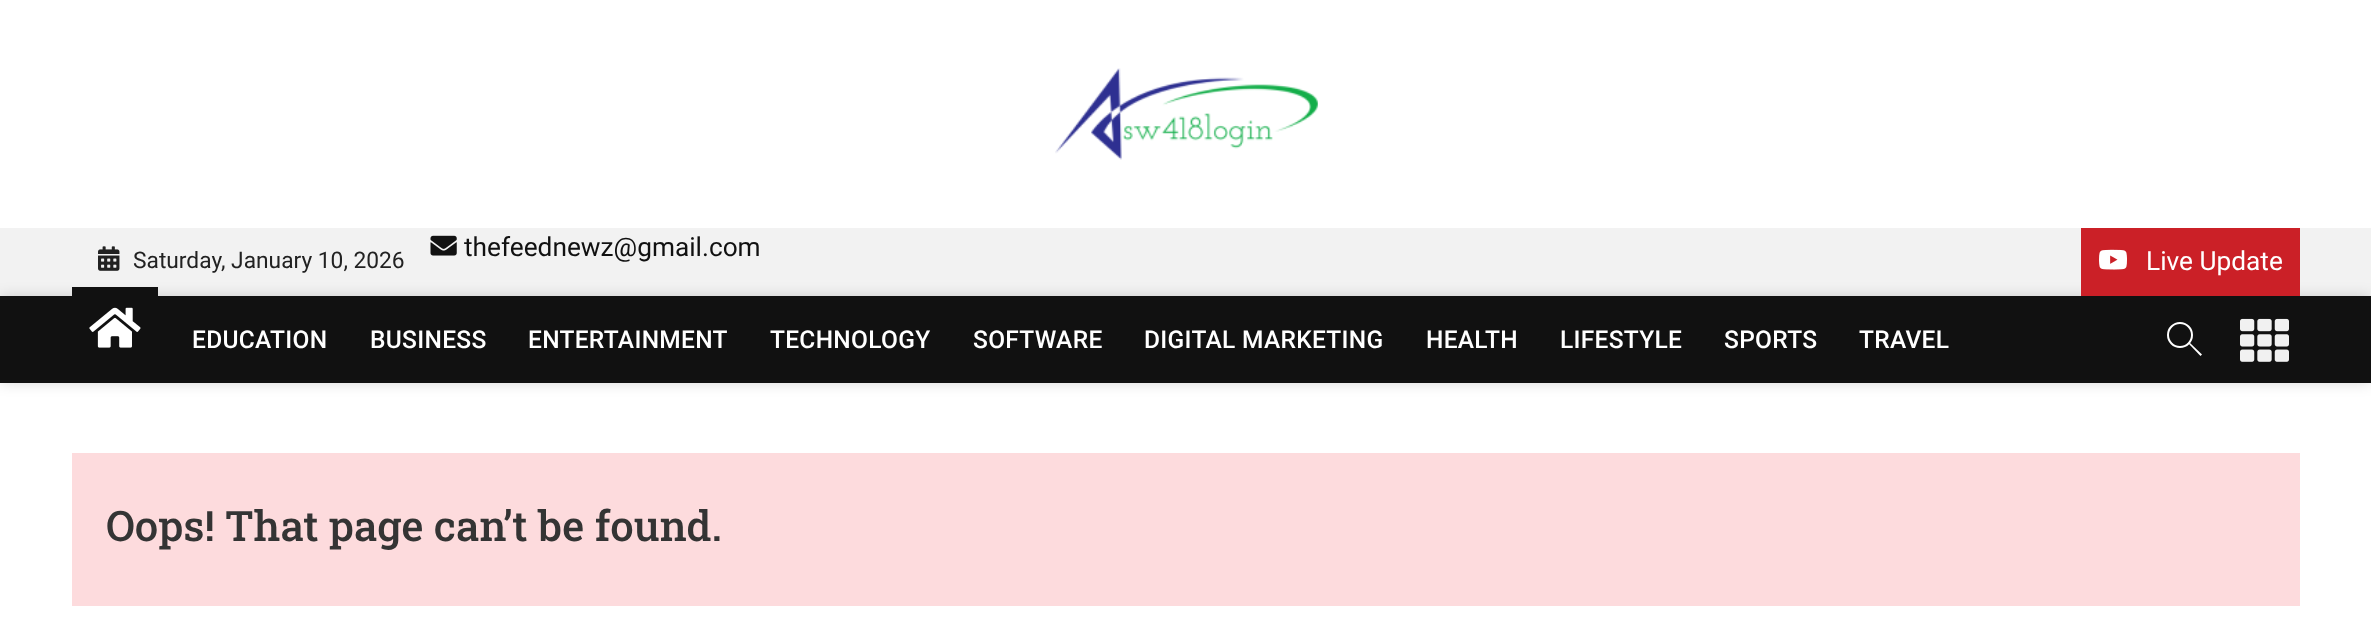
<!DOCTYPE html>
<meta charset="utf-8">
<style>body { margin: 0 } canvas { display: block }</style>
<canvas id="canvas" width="2371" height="618"></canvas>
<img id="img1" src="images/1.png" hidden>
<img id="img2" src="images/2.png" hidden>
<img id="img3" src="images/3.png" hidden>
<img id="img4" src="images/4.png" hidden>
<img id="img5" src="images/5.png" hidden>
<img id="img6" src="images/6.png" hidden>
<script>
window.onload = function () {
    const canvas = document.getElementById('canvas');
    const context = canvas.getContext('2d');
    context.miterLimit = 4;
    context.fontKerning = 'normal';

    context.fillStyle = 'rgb(255, 255, 255)';
    context.fillRect(0, 0, 2371, 618);
    context.drawImage(document.getElementById('img1'), 1055, 68, 263, 92);
    context.fillStyle = 'rgb(242, 242, 242)';
    context.fillRect(0, 228, 2371, 68);
    context.drawImage(document.getElementById('img2'), 98, 246, 22, 25);
    context.drawImage(document.getElementById('img3'), 430, 235, 27, 21);
    context.fillStyle = 'rgba(0, 0, 0, 0.15)';
    context.filter = 'blur(7px)';
    context.beginPath();
    context.rect(0, 296, 2371, 87);
    context.fill();
    context.filter = 'none';
    context.fillStyle = 'rgb(203, 32, 39)';
    context.fillRect(2081, 228, 219, 68);
    context.drawImage(document.getElementById('img4'), 2099, 249, 28, 21);
    context.fillStyle = 'rgb(17, 17, 17)';
    context.fillRect(0, 296, 2371, 87);
    context.fillRect(72, 287, 86, 9);
    context.drawImage(document.getElementById('img5'), 89, 307, 52, 41);
    context.beginPath();
    context.arc(2180, 335, 12, 0, 2 * Math.PI);
    context.strokeStyle = 'rgb(255, 255, 255)';
    context.lineWidth = 2;
    context.stroke();
    context.fillStyle = 'rgb(255, 255, 255)';
    context.beginPath();
    context.moveTo(2188.5, 343.5);
    context.lineTo(2189.5, 342.5);
    context.lineTo(2202, 354.5);
    context.lineTo(2200.5, 356);
    context.closePath();
    context.fill();
    context.drawImage(document.getElementById('img6'), 2240, 318, 49, 44);
    context.fillStyle = 'rgb(253, 219, 221)';
    context.fillRect(72, 453, 2228, 153);
    context.font = '22.75px Roboto';
    context.fillStyle = 'rgb(34, 34, 34)';
    context.fillText('Saturday, January 10, 2026', 133, 268);
    context.font = '26.25px Roboto';
    context.fillStyle = 'rgb(17, 17, 17)';
    context.fillText('thefeednewz@gmail.com', 464, 256);
    context.fillStyle = 'rgb(255, 255, 255)';
    context.fillText('Live Update', 2146, 270);
    context.letterSpacing = '0.3px';
    context.font = '500 24.5px Roboto';
    context.fillText('EDUCATION', 192, 348);
    context.fillText('BUSINESS', 370, 348);
    context.fillText('ENTERTAINMENT', 528, 348);
    context.fillText('TECHNOLOGY', 770, 348);
    context.fillText('SOFTWARE', 973, 348);
    context.fillText('DIGITAL MARKETING', 1144, 348);
    context.fillText('HEALTH', 1426, 348);
    context.fillText('LIFESTYLE', 1560, 348);
    context.fillText('SPORTS', 1724, 348);
    context.fillText('TRAVEL', 1859, 348);
    context.letterSpacing = '0px';
    context.font = '500 42px Roboto Slab';
    context.fillStyle = 'rgb(52, 52, 52)';
    context.fillText('Oops! That page can’t be found.', 106, 541);
};
</script>
